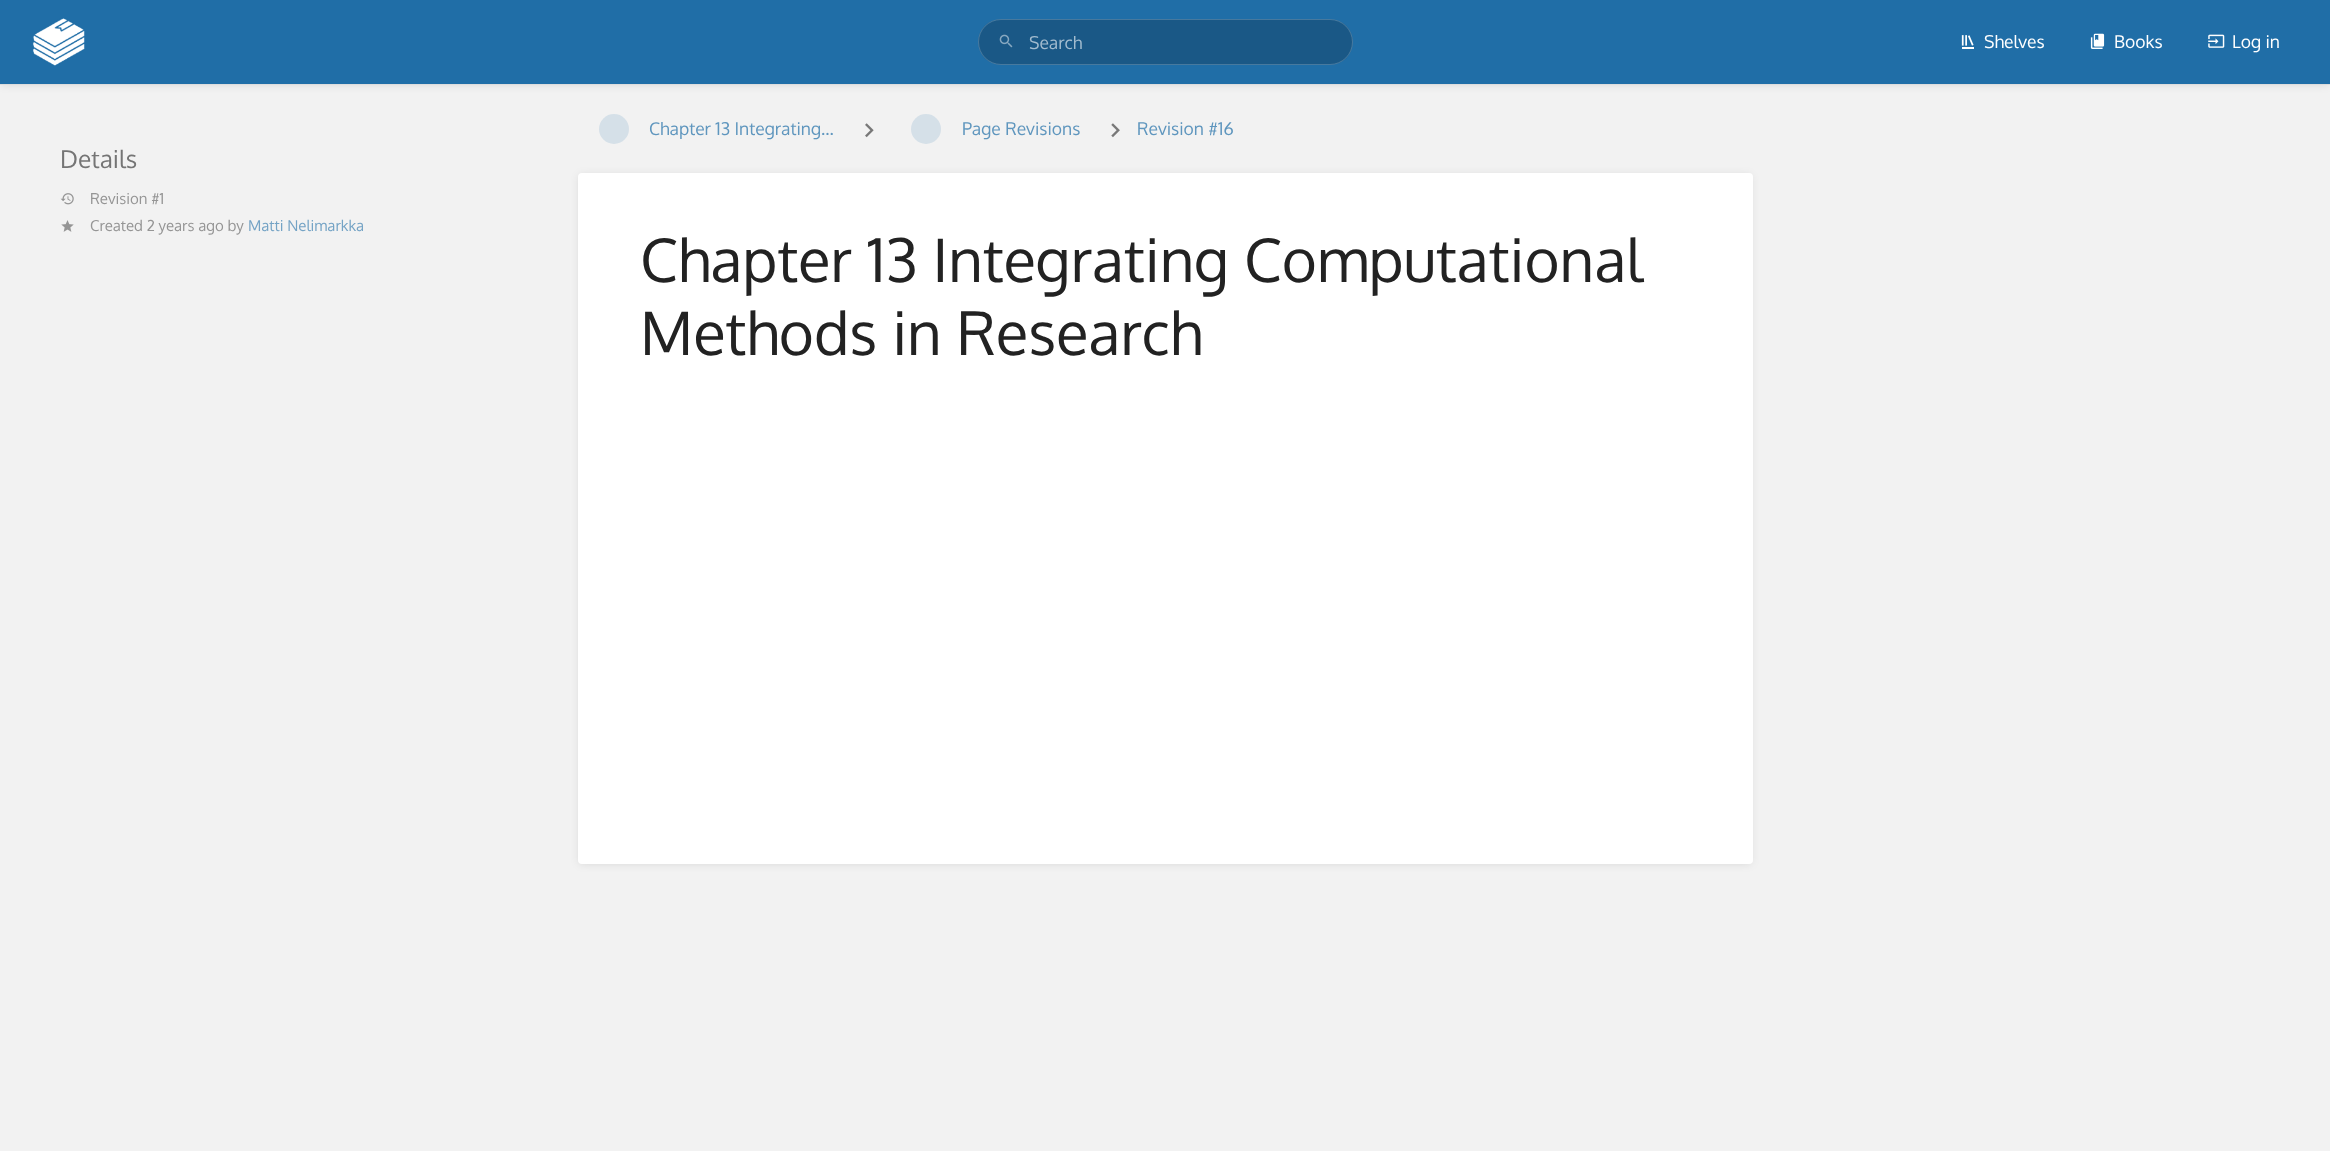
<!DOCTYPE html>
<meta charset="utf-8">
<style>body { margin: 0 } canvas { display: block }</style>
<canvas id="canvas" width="2330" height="1151"></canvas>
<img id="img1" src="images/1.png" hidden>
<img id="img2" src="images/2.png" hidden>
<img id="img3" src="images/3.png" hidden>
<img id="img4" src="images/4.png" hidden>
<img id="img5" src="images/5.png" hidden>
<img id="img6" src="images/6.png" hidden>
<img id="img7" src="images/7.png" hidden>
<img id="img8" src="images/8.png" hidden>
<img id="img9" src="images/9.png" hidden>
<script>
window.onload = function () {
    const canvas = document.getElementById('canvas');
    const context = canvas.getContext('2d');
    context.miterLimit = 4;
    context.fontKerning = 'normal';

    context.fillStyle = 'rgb(242, 242, 242)';
    context.fillRect(0, 0, 2330, 1151);
    context.fillStyle = 'rgba(0, 0, 0, 0.1)';
    context.filter = 'blur(4px)';
    context.beginPath();
    context.rect(1, 3, 2328, 82);
    context.fill();
    context.filter = 'none';
    context.fillStyle = 'rgb(32, 110, 167)';
    context.fillRect(0, 0, 2330, 84);
    context.fillStyle = 'rgb(221, 221, 221)';
    context.fillRect(0, 84, 2330, 1);
    context.drawImage(document.getElementById('img1'), 32, 18, 53, 48);
    context.fillStyle = 'rgb(26, 88, 134)';
    context.beginPath();
    context.roundRect(978, 19, 375, 46, 23);
    context.fill();
    context.beginPath();
    context.roundRect(978.5, 19.5, 374, 45, 22.5);
    context.strokeStyle = 'rgba(255, 255, 255, 0.2)';
    context.stroke();
    context.drawImage(document.getElementById('img2'), 999, 34, 14, 14);
    context.drawImage(document.getElementById('img3'), 1961, 35, 13, 14);
    context.drawImage(document.getElementById('img4'), 2090, 33, 15, 16);
    context.drawImage(document.getElementById('img5'), 2208, 34, 17, 14);
    context.drawImage(document.getElementById('img6'), 60, 193, 14, 12);
    context.drawImage(document.getElementById('img7'), 61, 220, 13, 12);
    context.fillStyle = 'rgb(213, 224, 232)';
    context.beginPath();
    context.arc(614, 129, 15, 0, 2 * Math.PI);
    context.fill();
    context.drawImage(document.getElementById('img8'), 865, 123, 9, 15);
    context.beginPath();
    context.arc(926, 129, 15, 0, 2 * Math.PI);
    context.fill();
    context.drawImage(document.getElementById('img9'), 1111, 123, 9, 15);
    context.fillStyle = 'rgba(0, 0, 0, 0.1)';
    context.filter = 'blur(4px)';
    context.beginPath();
    context.roundRect(579, 175, 1172, 689, 2.5);
    context.fill();
    context.filter = 'none';
    context.fillStyle = 'rgb(255, 255, 255)';
    context.beginPath();
    context.roundRect(578, 173, 1175, 691, 4);
    context.fill();
    context.font = '17.5px Oxygen';
    context.fillStyle = 'rgb(163, 188, 207)';
    context.fillText('Search', 1029, 49);
    context.fillStyle = 'rgb(255, 255, 255)';
    context.fillText('Shelves', 1984, 48);
    context.fillText('Books', 2114, 48);
    context.fillText('Log in', 2232, 48);
    context.font = '24.5px Oxygen';
    context.fillStyle = 'rgb(117, 117, 117)';
    context.fillText('Details', 60, 168);
    context.font = '15px Oxygen';
    context.fillStyle = 'rgb(149, 149, 149)';
    context.fillText('Revision #1', 90, 204);
    context.fillText('Created 2 years ago by', 90, 231);
    context.fillStyle = 'rgb(116, 163, 197)';
    context.fillText('Matti Nelimarkka', 248, 231);
    context.font = '17.5px Oxygen';
    context.fillStyle = 'rgb(95, 150, 190)';
    context.fillText('Chapter 13 Integrating...', 649, 135);
    context.fillText('Page Revisions', 962, 135);
    context.fillText('Revision #16', 1137, 135);
    context.font = '59.9px Oxygen';
    context.fillStyle = 'rgb(34, 34, 34)';
    context.fillText('Chapter 13 Integrating Computational', 640, 282);
    context.fillText('Methods in Research', 640, 355);
};
</script>
